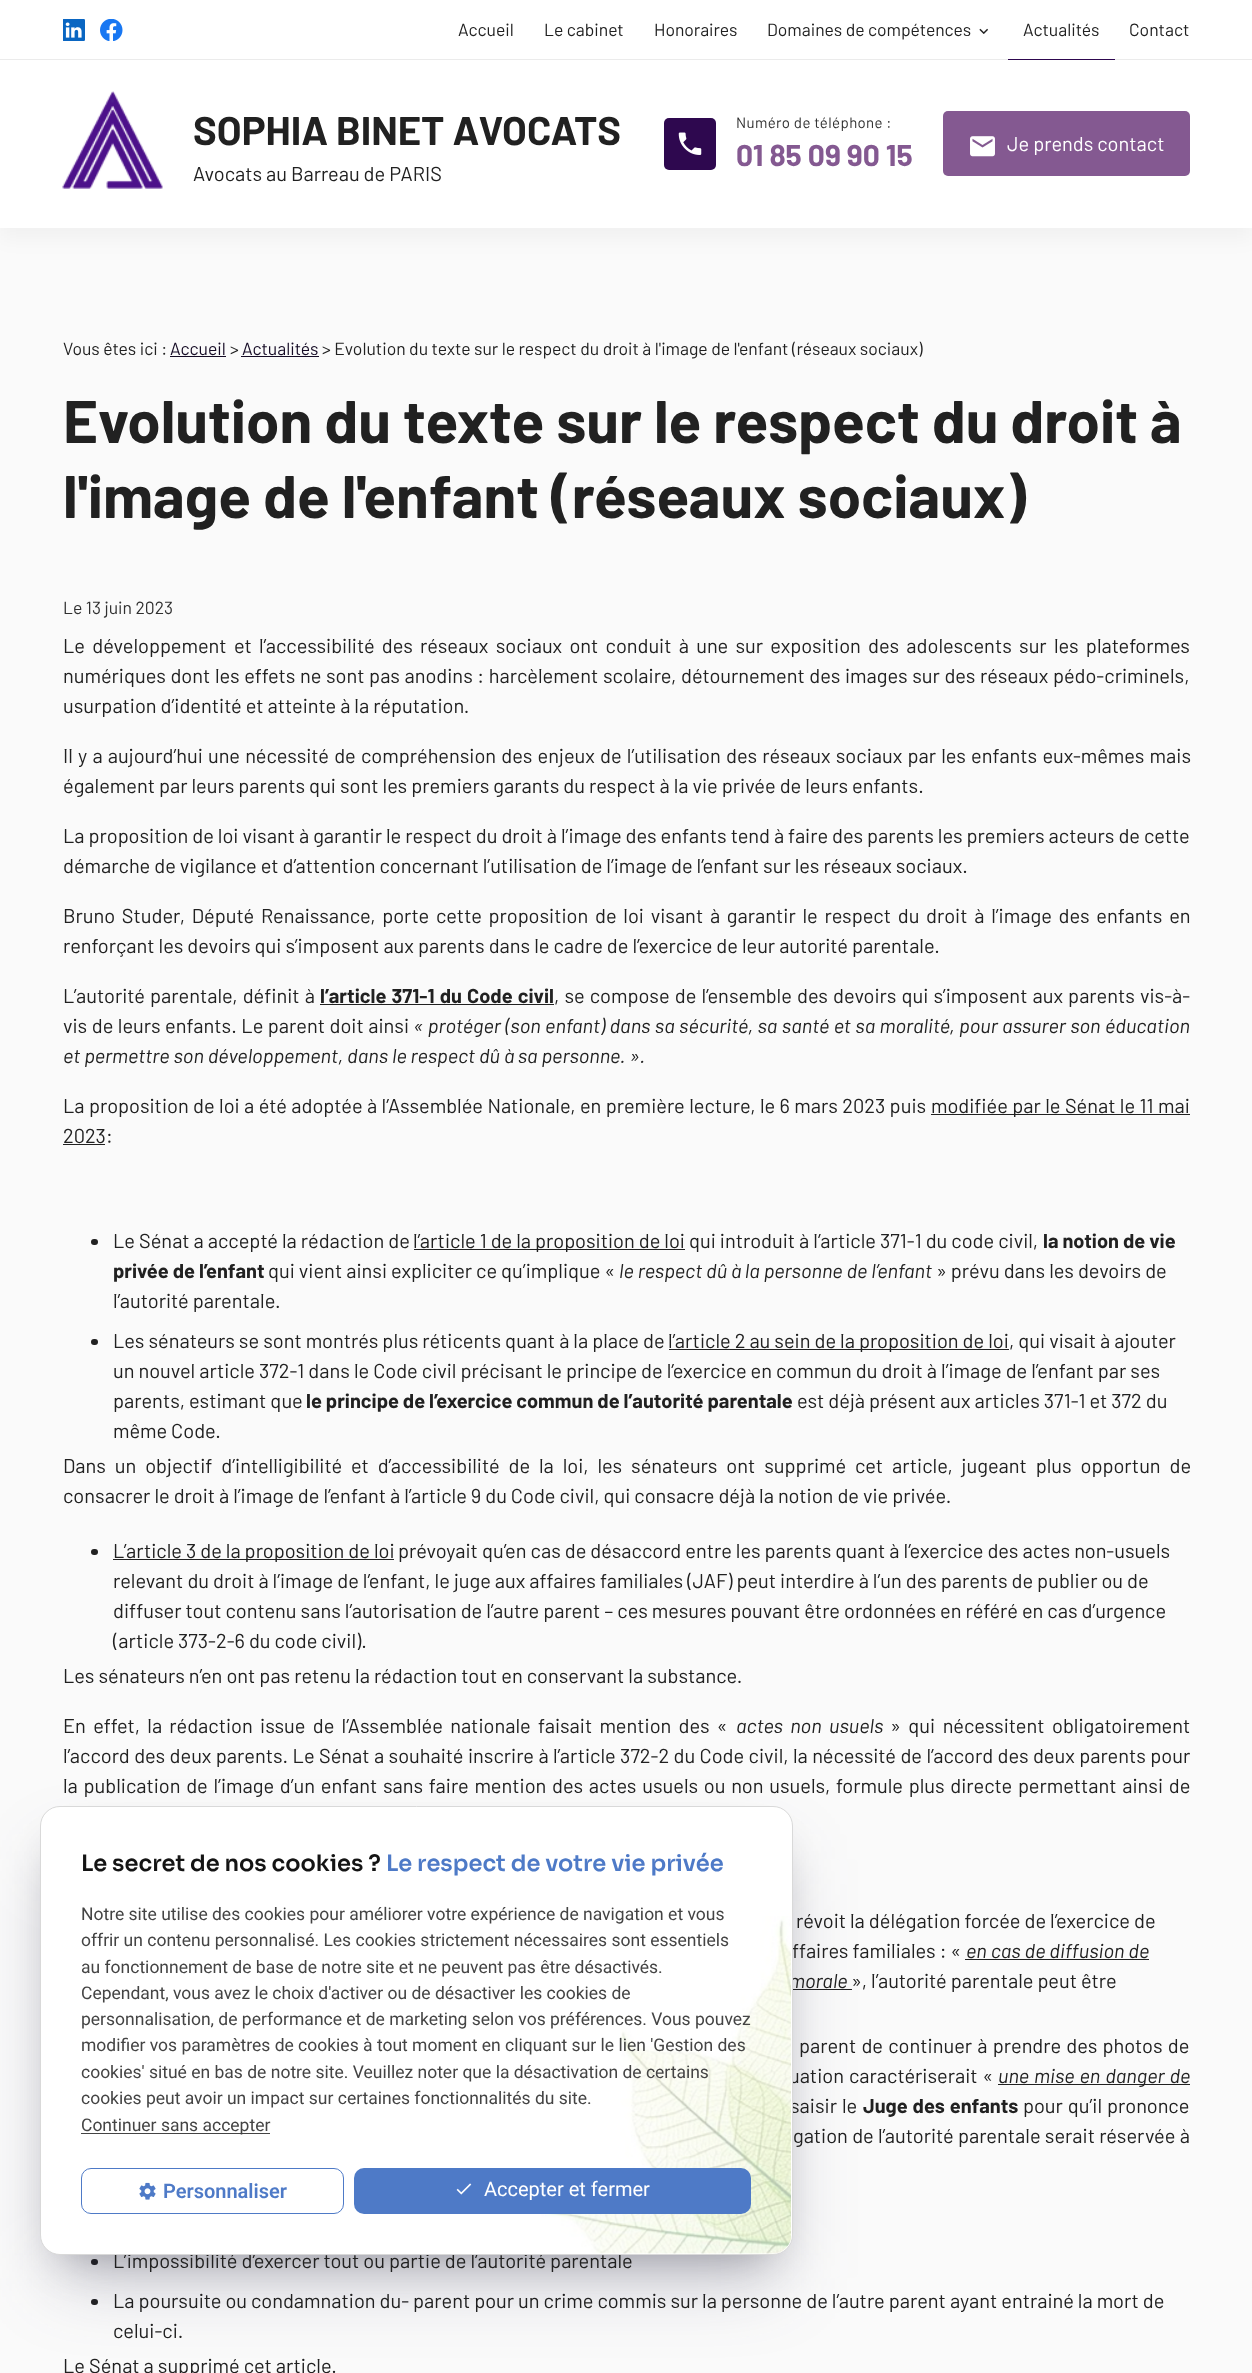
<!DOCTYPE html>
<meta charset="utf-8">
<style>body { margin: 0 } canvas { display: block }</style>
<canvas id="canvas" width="1252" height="2373"></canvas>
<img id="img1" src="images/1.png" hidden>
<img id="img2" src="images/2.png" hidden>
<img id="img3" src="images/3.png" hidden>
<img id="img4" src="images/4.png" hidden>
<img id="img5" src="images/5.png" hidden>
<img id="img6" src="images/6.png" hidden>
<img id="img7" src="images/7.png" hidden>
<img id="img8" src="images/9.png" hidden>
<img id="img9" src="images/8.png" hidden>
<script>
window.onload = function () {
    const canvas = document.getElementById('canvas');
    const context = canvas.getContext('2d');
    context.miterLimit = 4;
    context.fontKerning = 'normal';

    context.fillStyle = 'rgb(250, 250, 250)';
    context.fillRect(0, 0, 1252, 2373);
    context.fillStyle = 'rgba(0, 0, 0, 0.04)';
    context.filter = 'blur(10px)';
    context.beginPath();
    context.rect(0, 10, 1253, 228);
    context.fill();
    context.filter = 'none';
    context.fillStyle = 'rgb(255, 255, 255)';
    context.fillRect(0, 0, 1252, 228);
    context.fillStyle = 'rgb(235, 235, 235)';
    context.fillRect(0, 59, 1252, 1);
    context.drawImage(document.getElementById('img1'), 63, 19, 22, 22);
    context.drawImage(document.getElementById('img2'), 100, 19, 23, 22);
    context.drawImage(document.getElementById('img3'), 979, 28, 9, 6);
    context.fillStyle = 'rgb(46, 8, 79)';
    context.fillRect(1008, 59, 107, 1);
    context.drawImage(document.getElementById('img4'), 62, 91, 101, 98);
    context.beginPath();
    context.roundRect(664, 118, 52, 52, 5);
    context.fill();
    context.drawImage(document.getElementById('img5'), 678, 132, 24, 23);
    context.fillStyle = 'rgb(132, 89, 145)';
    context.beginPath();
    context.roundRect(943, 111, 247, 65, 5);
    context.fill();
    context.drawImage(document.getElementById('img6'), 970, 136, 25, 21);
    context.fillStyle = 'rgb(20, 10, 36)';
    context.fillRect(170, 356, 56, 1);
    context.fillRect(241, 356, 78, 1);
    context.fillStyle = 'rgb(33, 33, 33)';
    context.fillRect(320, 1004, 234, 1);
    context.fillRect(931, 1114, 259, 1);
    context.fillRect(63, 1144, 42, 1);
    context.beginPath();
    context.roundRect(91, 1239, 7, 6, 3);
    context.fill();
    context.fillRect(414, 1249, 271, 1);
    context.beginPath();
    context.roundRect(91, 1339, 7, 6, 3);
    context.fill();
    context.fillRect(669, 1349, 340, 1);
    context.beginPath();
    context.roundRect(91, 1549, 7, 6, 3);
    context.fill();
    context.fillRect(113, 1559, 281, 1);
    context.fillRect(965, 1959, 184, 1);
    context.fillRect(793, 1989, 59, 1);
    context.fillRect(998, 2084, 192, 1);
    context.beginPath();
    context.roundRect(91, 2259, 7, 6, 3);
    context.fill();
    context.beginPath();
    context.roundRect(91, 2299, 7, 6, 3);
    context.fill();
    context.fillStyle = 'rgba(0, 0, 0, 0.3)';
    context.filter = 'blur(22.5px)';
    context.beginPath();
    context.rect(63, 1851, 707, 404);
    context.fill();
    context.filter = 'none';
    context.fillStyle = 'rgba(50, 50, 93, 0.25)';
    context.filter = 'blur(37.5px)';
    context.beginPath();
    context.roundRect(55, 1859, 723, 419, 5);
    context.fill();
    context.filter = 'none';
    context.font = '17.5px Barlow';
    context.fillStyle = 'rgb(33, 33, 33)';
    context.fillText('Accueil', 458, 36);
    context.fillText('Le cabinet', 544, 36);
    context.fillText('Honoraires', 654, 36);
    context.fillText('Domaines de compétences', 767, 36);
    context.fillText('Actualités', 1023, 36);
    context.fillText('Contact', 1129, 36);
    context.font = 'bold 40px Barlow';
    context.fillText('SOPHIA BINET AVOCATS', 193, 145);
    context.font = '20px Barlow';
    context.fillText('Avocats au Barreau de PARIS', 193, 181);
    context.letterSpacing = '0.4px';
    context.font = '15px Barlow';
    context.fillStyle = 'rgb(48, 48, 48)';
    context.fillText('Numéro de téléphone :', 736, 128);
    context.letterSpacing = '0px';
    context.font = 'bold 30px Barlow';
    context.fillStyle = 'rgb(132, 89, 145)';
    context.fillText('01 85 09 90 15', 736, 166);
    context.font = '20px Barlow';
    context.fillStyle = 'rgb(255, 255, 255)';
    context.fillText('Je prends contact', 1007, 151);
    context.font = '17.5px Barlow';
    context.fillStyle = 'rgb(33, 33, 33)';
    context.fillText('Vous êtes ici :', 63, 355);
    context.fillStyle = 'rgb(20, 10, 36)';
    context.fillText('Accueil', 170, 355);
    context.fillStyle = 'rgb(33, 33, 33)';
    context.fillText('>', 230, 355);
    context.fillStyle = 'rgb(20, 10, 36)';
    context.fillText('Actualités', 242, 355);
    context.fillStyle = 'rgb(33, 33, 33)';
    context.fillText('> Evolution du texte sur le respect du droit à l\'image de l\'enfant (réseaux sociaux)', 322, 355);
    context.font = 'bold 60px Barlow';
    context.fillText('Evolution du texte sur le respect du droit à', 63, 443);
    context.fillText('l\'image de l\'enfant (réseaux sociaux)', 63, 518);
    context.font = '17.5px Barlow';
    context.fillStyle = 'rgb(48, 48, 48)';
    context.fillText('Le 13 juin 2023', 63, 614);
    context.wordSpacing = '3.25px';
    context.font = '20px Barlow';
    context.fillStyle = 'rgb(33, 33, 33)';
    context.fillText('Le développement et l’accessibilité des réseaux sociaux ont conduit à une sur exposition des adolescents sur les plateformes', 63, 653);
    context.wordSpacing = '0.6px';
    context.fillText('numériques dont les effets ne sont pas anodins : harcèlement scolaire, détournement des images sur des réseaux pédo-criminels,', 63, 683);
    context.wordSpacing = '0px';
    context.fillText('usurpation d’identité et atteinte à la réputation.', 63, 713);
    context.wordSpacing = '1.2px';
    context.fillText('Il y a aujourd’hui une nécessité de compréhension des enjeux de l’utilisation des réseaux sociaux par les enfants eux-mêmes mais', 63, 763);
    context.wordSpacing = '0px';
    context.fillText('également par leurs parents qui sont les premiers garants du respect à la vie privée de leurs enfants.', 63, 793);
    context.fillText('La proposition de loi visant à garantir le respect du droit à l’image des enfants tend à faire des parents les premiers acteurs de cette', 63, 843);
    context.fillText('démarche de vigilance et d’attention concernant l’utilisation de l’image de l’enfant sur les réseaux sociaux.', 63, 873);
    context.wordSpacing = '2.75px';
    context.fillText('Bruno Studer, Député Renaissance, porte cette proposition de loi visant à garantir le respect du droit à l’image des enfants en', 63, 923);
    context.wordSpacing = '0px';
    context.fillText('renforçant les devoirs qui s’imposent aux parents dans le cadre de l’exercice de leur autorité parentale.', 63, 953);
    context.wordSpacing = '1.1px';
    context.fillText('L’autorité parentale, définit à', 63, 1003);
    context.font = 'bold 20px Barlow';
    context.fillText('l’article 371-1 du Code civil', 320, 1003);
    context.font = '20px Barlow';
    context.fillText(', se compose de l’ensemble des devoirs qui s’imposent aux parents vis-à-', 554, 1003);
    context.wordSpacing = '0.5px';
    context.fillText('vis de leurs enfants. Le parent doit ainsi', 63, 1033);
    context.font = 'italic 20px Barlow';
    context.fillText('« protéger (son enfant) dans sa sécurité, sa santé et sa moralité, pour assurer son éducation', 413, 1033);
    context.wordSpacing = '0px';
    context.fillText('et permettre son développement, dans le respect dû à sa personne. ».', 63, 1063);
    context.wordSpacing = '0.4px';
    context.font = '20px Barlow';
    context.fillText('La proposition de loi a été adoptée à l’Assemblée Nationale, en première lecture, le 6 mars 2023 puis', 63, 1113);
    context.fillText('modifiée par le Sénat le 11 mai', 931, 1113);
    context.wordSpacing = '0px';
    context.fillText('2023:', 63, 1143);
    context.fillText('Le Sénat a accepté la rédaction de', 113, 1248);
    context.fillText('l’article 1 de la proposition de loi', 413, 1248);
    context.fillText('qui introduit à l’article 371-1 du code civil,', 689, 1248);
    context.font = 'bold 20px Barlow';
    context.fillText('la notion de vie', 1043, 1248);
    context.fillText('privée de l’enfant', 113, 1278);
    context.font = '20px Barlow';
    context.fillText('qui vient ainsi expliciter ce qu’implique «', 268, 1278);
    context.font = 'italic 20px Barlow';
    context.fillText('le respect dû à la personne de l’enfant', 619, 1278);
    context.font = '20px Barlow';
    context.fillText('» prévu dans les devoirs de', 936, 1278);
    context.fillText('l’autorité parentale.', 113, 1308);
    context.fillText('Les sénateurs se sont montrés plus réticents quant à la place de', 113, 1348);
    context.fillText('l’article 2 au sein de la proposition de loi', 668, 1348);
    context.fillText(', qui visait à ajouter', 1009, 1348);
    context.fillText('un nouvel article 372-1 dans le Code civil précisant le principe de l’exercice en commun du droit à l’image de l’enfant par ses', 113, 1378);
    context.fillText('parents, estimant que', 113, 1408);
    context.font = 'bold 20px Barlow';
    context.fillText('le principe de l’exercice commun de l’autorité parentale', 306, 1408);
    context.font = '20px Barlow';
    context.fillText('est déjà présent aux articles 371-1 et 372 du', 797, 1408);
    context.fillText('même Code.', 113, 1438);
    context.wordSpacing = '4.9px';
    context.fillText('Dans un objectif d’intelligibilité et d’accessibilité de la loi, les sénateurs ont supprimé cet article, jugeant plus opportun de', 63, 1473);
    context.wordSpacing = '0px';
    context.fillText('consacrer le droit à l’image de l’enfant à l’article 9 du Code civil, qui consacre déjà la notion de vie privée.', 63, 1503);
    context.fillText('L’article 3 de la proposition de loi', 113, 1558);
    context.fillText('prévoyait qu’en cas de désaccord entre les parents quant à l’exercice des actes non-usuels', 398, 1558);
    context.fillText('relevant du droit à l’image de l’enfant, le juge aux affaires familiales (JAF) peut interdire à l’un des parents de publier ou de', 113, 1588);
    context.fillText('diffuser tout contenu sans l’autorisation de l’autre parent – ces mesures pouvant être ordonnées en référé en cas d’urgence', 113, 1618);
    context.fillText('(article 373-2-6 du code civil).', 113, 1648);
    context.fillText('Les sénateurs n’en ont pas retenu la rédaction tout en conservant la substance.', 63, 1683);
    context.wordSpacing = '3.25px';
    context.fillText('En effet, la rédaction issue de l’Assemblée nationale faisait mention des «', 63, 1733);
    context.wordSpacing = '3.5px';
    context.font = 'italic 20px Barlow';
    context.fillText('actes non usuels', 736, 1733);
    context.font = '20px Barlow';
    context.fillText('» qui nécessitent obligatoirement', 890, 1733);
    context.wordSpacing = '0.4px';
    context.fillText('l’accord des deux parents. Le Sénat a souhaité inscrire à l’article 372-2 du Code civil, la nécessité de l’accord des deux parents pour', 63, 1763);
    context.wordSpacing = '1.7px';
    context.fillText('la publication de l’image d’un enfant sans faire mention des actes usuels ou non usuels, formule plus directe permettant ainsi de', 63, 1793);
    context.wordSpacing = '0px';
    context.fillText('révoit la délégation forcée de l’exercice de', 796, 1928);
    context.fillText('ffaires familiales : «', 792, 1958);
    context.font = 'italic 20px Barlow';
    context.fillText('en cas de diffusion de', 966, 1958);
    context.fillText('morale', 789, 1988);
    context.font = '20px Barlow';
    context.fillText('», l’autorité parentale peut être', 851, 1988);
    context.wordSpacing = '1.25px';
    context.fillText('parent de continuer à prendre des photos de', 799, 2053);
    context.wordSpacing = '1px';
    context.fillText('uation caractériserait «', 789, 2083);
    context.font = 'italic 20px Barlow';
    context.fillText('une mise en danger de', 998, 2083);
    context.font = '20px Barlow';
    context.fillText('saisir le', 790, 2113);
    context.font = 'bold 20px Barlow';
    context.fillText('Juge des enfants', 863, 2113);
    context.font = '20px Barlow';
    context.fillText('pour qu’il prononce', 1023, 2113);
    context.wordSpacing = '0.25px';
    context.fillText('gation de l’autorité parentale serait réservée à', 793, 2143);
    context.wordSpacing = '0px';
    context.fillText('L’impossibilité d’exercer tout ou partie de l’autorité parentale', 113, 2268);
    context.fillText('La poursuite ou condamnation du- parent pour un crime commis sur la personne de l’autre parent ayant entrainé la mort de', 113, 2308);
    context.fillText('celui-ci.', 113, 2338);
    context.fillText('Le Sénat a supprimé cet article.', 63, 2373);
    context.fillStyle = 'rgb(255, 255, 255)';
    context.beginPath();
    context.roundRect(40.5, 1806.5, 752, 448, 19.5);
    context.fill();
    context.strokeStyle = 'rgb(217, 217, 217)';
    context.stroke();
    context.font = '600 22.5px Sora';
    context.fillStyle = 'rgb(20, 20, 20)';
    context.fillText('Le secret de nos cookies ?', 81, 1871);
    context.fillStyle = 'rgb(78, 122, 199)';
    context.fillText('Le respect de votre vie privée', 386, 1871);
    context.fillStyle = 'rgb(68, 68, 68)';
    context.fillRect(81, 2133, 189, 1);
    context.font = '17.5px Roboto';
    context.fillText('Continuer sans accepter', 81, 2131);
    context.beginPath();
    context.roundRect(81.5, 2168.5, 262, 45, 9.5);
    context.strokeStyle = 'rgb(78, 122, 199)';
    context.stroke();
    context.drawImage(document.getElementById('img7'), 139, 2182, 17, 18);
    context.font = '600 20px Roboto';
    context.fillStyle = 'rgb(78, 122, 199)';
    context.fillText('Personnaliser', 163, 2198);
    context.drawImage(document.getElementById('img8'), 541, 1916, 250, 338);
    context.beginPath();
    context.roundRect(354, 2168, 397, 46, 10);
    context.fill();
    context.font = '20px Roboto';
    context.fillStyle = 'rgb(255, 255, 255)';
    context.fillText('Accepter et fermer', 484, 2196);
    context.drawImage(document.getElementById('img9'), 456, 2183, 16, 12);
    context.font = '17.5px Roboto';
    context.fillStyle = 'rgb(68, 68, 68)';
    context.fillText('cookies peut avoir un impact sur certaines fonctionnalités du site.', 81, 2104);
    context.fillText('cookies\' situé en bas de notre site. Veuillez noter que la désactivation de certains', 81, 2078);
    context.fillText('modifier vos paramètres de cookies à tout moment en cliquant sur le lien \'Gestion des', 81, 2051);
    context.fillText('personnalisation, de performance et de marketing selon vos préférences. Vous pouvez', 81, 2025);
    context.fillText('Cependant, vous avez le choix d\'activer ou de désactiver les cookies de', 81, 1999);
    context.fillText('au fonctionnement de base de notre site et ne peuvent pas être désactivés.', 81, 1973);
    context.fillText('offrir un contenu personnalisé. Les cookies strictement nécessaires sont essentiels', 81, 1946);
    context.fillText('Notre site utilise des cookies pour améliorer votre expérience de navigation et vous', 81, 1920);
};
</script>
